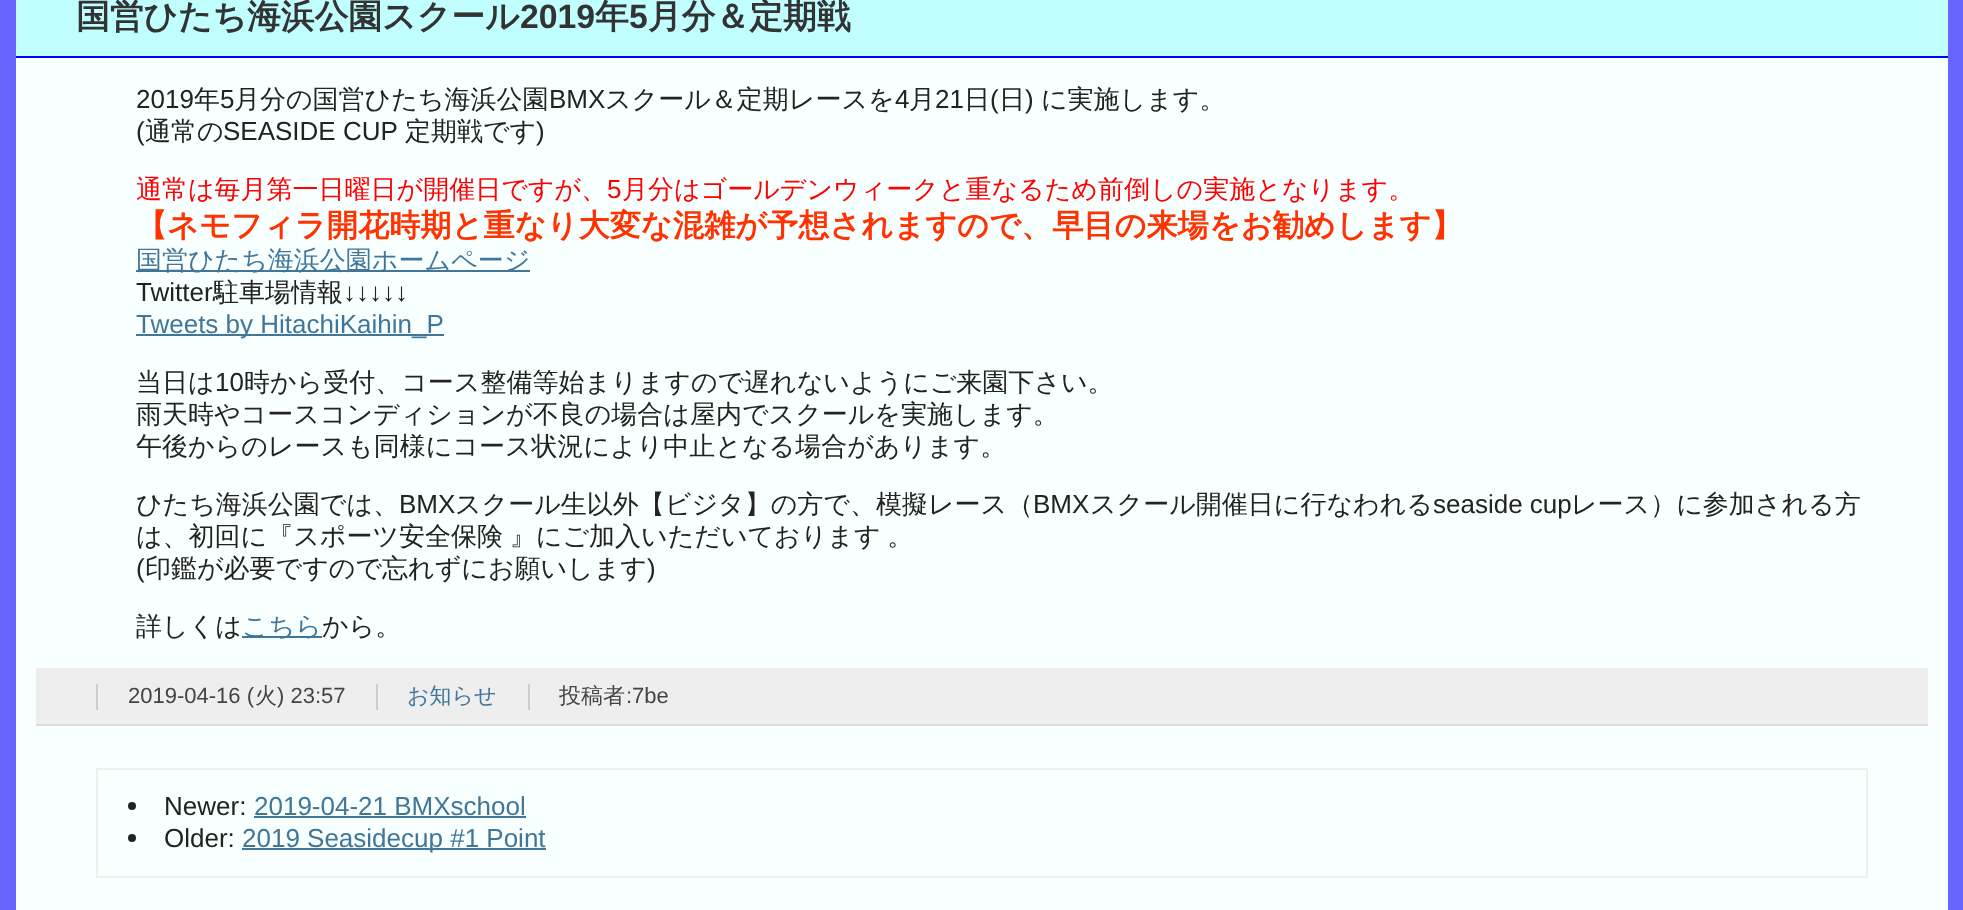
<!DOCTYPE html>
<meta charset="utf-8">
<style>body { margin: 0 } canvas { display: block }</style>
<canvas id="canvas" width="1963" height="910"></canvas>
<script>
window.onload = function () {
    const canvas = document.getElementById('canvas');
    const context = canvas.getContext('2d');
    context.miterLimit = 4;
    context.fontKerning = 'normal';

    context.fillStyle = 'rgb(102, 102, 255)';
    context.fillRect(0, 0, 1963, 910);
    context.fillStyle = 'rgb(247, 255, 255)';
    context.fillRect(16, 58, 1932, 852);
    context.fillStyle = 'rgb(193, 255, 255)';
    context.fillRect(16, 0, 1932, 56);
    context.fillStyle = 'rgb(0, 0, 255)';
    context.fillRect(16, 56, 1932, 2);
    context.fillStyle = 'rgb(65, 118, 152)';
    context.fillRect(136, 270, 394, 2);
    context.fillRect(136, 334, 308, 2);
    context.fillRect(242, 636, 80, 2);
    context.fillStyle = 'rgb(238, 238, 238)';
    context.fillRect(36, 668, 1892, 56);
    context.fillStyle = 'rgb(221, 221, 221)';
    context.fillRect(36, 724, 1892, 2);
    context.fillStyle = 'rgb(204, 204, 204)';
    context.fillRect(96, 684, 2, 26);
    context.fillRect(376, 684, 2, 26);
    context.fillRect(528, 684, 2, 26);
    context.strokeStyle = 'rgb(238, 238, 238)';
    context.lineWidth = 2;
    context.strokeRect(97, 769, 1770, 108);
    context.fillStyle = 'rgb(34, 34, 34)';
    context.beginPath();
    context.arc(132, 806, 4, 0, 2 * Math.PI);
    context.fill();
    context.fillStyle = 'rgb(65, 118, 152)';
    context.fillRect(254, 816, 272, 2);
    context.fillStyle = 'rgb(34, 34, 34)';
    context.beginPath();
    context.arc(132, 838, 4, 0, 2 * Math.PI);
    context.fill();
    context.fillStyle = 'rgb(65, 118, 152)';
    context.fillRect(242, 848, 304, 2);
    context.font = 'bold 33.75px WenQuanYi Zen Hei';
    context.fillStyle = 'rgb(51, 51, 51)';
    context.fillText('国営ひたち海浜公園スクール', 76, 28);
    context.font = 'bold 33.75px Liberation Sans';
    context.fillText('2019', 520, 28);
    context.font = 'bold 33.75px WenQuanYi Zen Hei';
    context.fillText('年', 595, 28);
    context.font = 'bold 33.75px Liberation Sans';
    context.fillText('5', 629, 28);
    context.font = 'bold 33.75px WenQuanYi Zen Hei';
    context.fillText('月分＆定期戦', 648, 28);
    context.font = '26px Liberation Sans';
    context.fillStyle = 'rgb(34, 34, 34)';
    context.fillText('2019', 136, 108);
    context.font = '500 26px WenQuanYi Zen Hei';
    context.fillText('年', 194, 108);
    context.font = '26px Liberation Sans';
    context.fillText('5', 220, 108);
    context.font = '500 26px WenQuanYi Zen Hei';
    context.fillText('月分の国営ひたち海浜公園', 234, 108);
    context.font = '26px Liberation Sans';
    context.fillText('BMX', 549, 108);
    context.font = '500 26px WenQuanYi Zen Hei';
    context.fillText('スクール＆定期レースを', 605, 108);
    context.font = '26px Liberation Sans';
    context.fillText('4', 895, 108);
    context.font = '500 26px WenQuanYi Zen Hei';
    context.fillText('月', 909, 108);
    context.font = '26px Liberation Sans';
    context.fillText('21', 935, 108);
    context.font = '500 26px WenQuanYi Zen Hei';
    context.fillText('日', 964, 108);
    context.font = '26px Liberation Sans';
    context.fillText('(', 990, 108);
    context.font = '500 26px WenQuanYi Zen Hei';
    context.fillText('日', 999, 108);
    context.font = '26px Liberation Sans';
    context.fillText(')', 1025, 108);
    context.font = '500 26px WenQuanYi Zen Hei';
    context.fillText('に実施します。', 1041, 108);
    context.font = '26px Liberation Sans';
    context.fillText('(', 136, 140);
    context.font = '500 26px WenQuanYi Zen Hei';
    context.fillText('通常の', 145, 140);
    context.font = '26px Liberation Sans';
    context.fillText('SEASIDE CUP', 223, 140);
    context.font = '500 26px WenQuanYi Zen Hei';
    context.fillText('定期戦です', 405, 140);
    context.font = '26px Liberation Sans';
    context.fillText(')', 536, 140);
    context.font = '500 26px WenQuanYi Zen Hei';
    context.fillStyle = 'rgb(255, 0, 0)';
    context.fillText('通常は毎月第一日曜日が開催日ですが、', 136, 198);
    context.font = '26px Liberation Sans';
    context.fillText('5', 607, 198);
    context.font = '500 26px WenQuanYi Zen Hei';
    context.fillText('月分はゴールデンウィークと重なるため前倒しの実施となります。', 622, 198);
    context.font = 'bold 31.2px WenQuanYi Zen Hei';
    context.fillStyle = 'rgb(255, 50, 0)';
    context.fillText('【ネモフィラ開花時期と重なり大変な混雑が予想されますので、早目の来場をお勧めします】', 136, 236);
    context.font = '500 26px WenQuanYi Zen Hei';
    context.fillStyle = 'rgb(65, 118, 152)';
    context.fillText('国営ひたち海浜公園ホームページ', 136, 269);
    context.font = '26px Liberation Sans';
    context.fillStyle = 'rgb(34, 34, 34)';
    context.fillText('Twitter', 136, 301);
    context.font = '500 26px WenQuanYi Zen Hei';
    context.fillText('駐車場情報', 213, 301);
    context.font = '26px Liberation Sans';
    context.fillText('↓↓↓↓↓', 343, 301);
    context.fillStyle = 'rgb(65, 118, 152)';
    context.fillText('Tweets by HitachiKaihin_P', 136, 333);
    context.font = '500 26px WenQuanYi Zen Hei';
    context.fillStyle = 'rgb(34, 34, 34)';
    context.fillText('当日は', 136, 391);
    context.font = '26px Liberation Sans';
    context.fillText('10', 215, 391);
    context.font = '500 26px WenQuanYi Zen Hei';
    context.fillText('時から受付、コース整備等始まりますので遅れないようにご来園下さい。', 244, 391);
    context.fillText('雨天時やコースコンディションが不良の場合は屋内でスクールを実施します。', 136, 423);
    context.fillText('午後からのレースも同様にコース状況により中止となる場合があります。', 136, 455);
    context.fillText('ひたち海浜公園では、', 136, 513);
    context.font = '26px Liberation Sans';
    context.fillText('BMX', 399, 513);
    context.font = '500 26px WenQuanYi Zen Hei';
    context.fillText('スクール生以外【ビジタ】の方で、模擬レース（', 455, 513);
    context.font = '26px Liberation Sans';
    context.fillText('BMX', 1033, 513);
    context.font = '500 26px WenQuanYi Zen Hei';
    context.fillText('スクール開催日に行なわれる', 1090, 513);
    context.font = '26px Liberation Sans';
    context.fillText('seaside cup', 1433, 513);
    context.font = '500 26px WenQuanYi Zen Hei';
    context.fillText('レース）に参加される方', 1571, 513);
    context.wordSpacing = '-1px';
    context.fillText('は、初回に『スポーツ安全保険 』にご加入いただいております 。', 136, 545);
    context.wordSpacing = '0px';
    context.font = '26px Liberation Sans';
    context.fillText('(', 136, 577);
    context.font = '500 26px WenQuanYi Zen Hei';
    context.fillText('印鑑が必要ですので忘れずにお願いします', 145, 577);
    context.font = '26px Liberation Sans';
    context.fillText(')', 647, 577);
    context.font = '500 26px WenQuanYi Zen Hei';
    context.fillText('詳しくは', 136, 635);
    context.fillStyle = 'rgb(65, 118, 152)';
    context.fillText('こちら', 242, 635);
    context.fillStyle = 'rgb(34, 34, 34)';
    context.fillText('から。', 322, 635);
    context.font = '22px Liberation Sans';
    context.fillStyle = 'rgb(68, 68, 68)';
    context.fillText('2019-04-16 (', 128, 703);
    context.font = '500 22px WenQuanYi Zen Hei';
    context.fillText('火', 255, 703);
    context.font = '22px Liberation Sans';
    context.fillText(') 23:57', 277, 703);
    context.font = '500 22px WenQuanYi Zen Hei';
    context.fillStyle = 'rgb(65, 118, 152)';
    context.fillText('お知らせ', 407, 703);
    context.fillStyle = 'rgb(68, 68, 68)';
    context.fillText('投稿者', 559, 703);
    context.font = '22px Liberation Sans';
    context.fillText(':7be', 626, 703);
    context.font = '26px Liberation Sans';
    context.fillStyle = 'rgb(34, 34, 34)';
    context.fillText('Newer:', 164, 815);
    context.fillStyle = 'rgb(65, 118, 152)';
    context.fillText('2019-04-21 BMXschool', 254, 815);
    context.fillStyle = 'rgb(34, 34, 34)';
    context.fillText('Older:', 164, 847);
    context.fillStyle = 'rgb(65, 118, 152)';
    context.fillText('2019 Seasidecup #1 Point', 242, 847);
};
</script>
